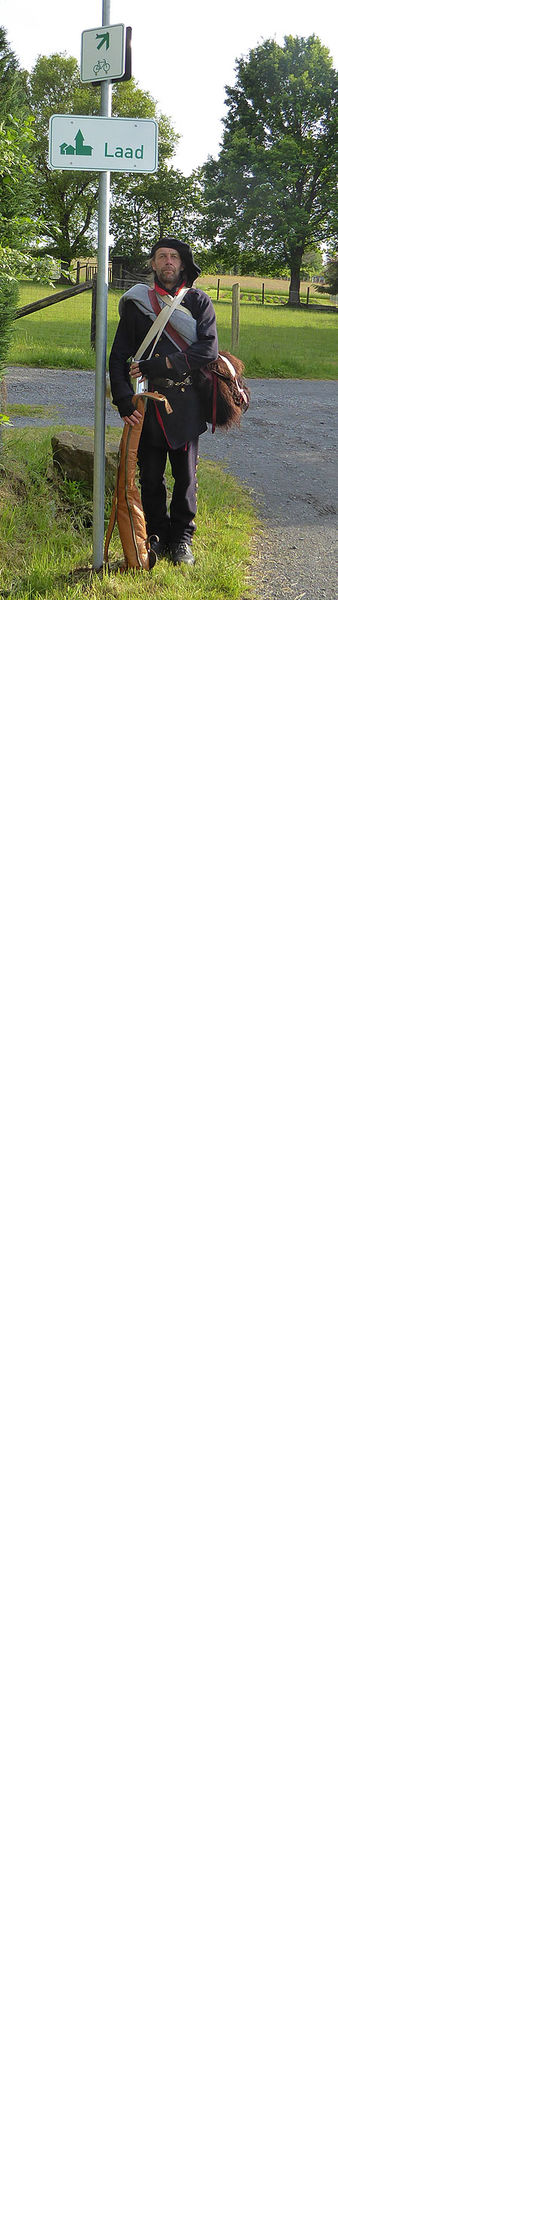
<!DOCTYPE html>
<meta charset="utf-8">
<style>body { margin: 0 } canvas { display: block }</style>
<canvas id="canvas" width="549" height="2223"></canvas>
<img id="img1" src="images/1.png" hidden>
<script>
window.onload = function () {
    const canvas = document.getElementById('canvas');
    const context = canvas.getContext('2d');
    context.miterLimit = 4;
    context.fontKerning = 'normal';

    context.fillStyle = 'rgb(255, 255, 255)';
    context.fillRect(0, 0, 549, 2223);
    context.drawImage(document.getElementById('img1'), 0, 0, 338, 600);
};
</script>
